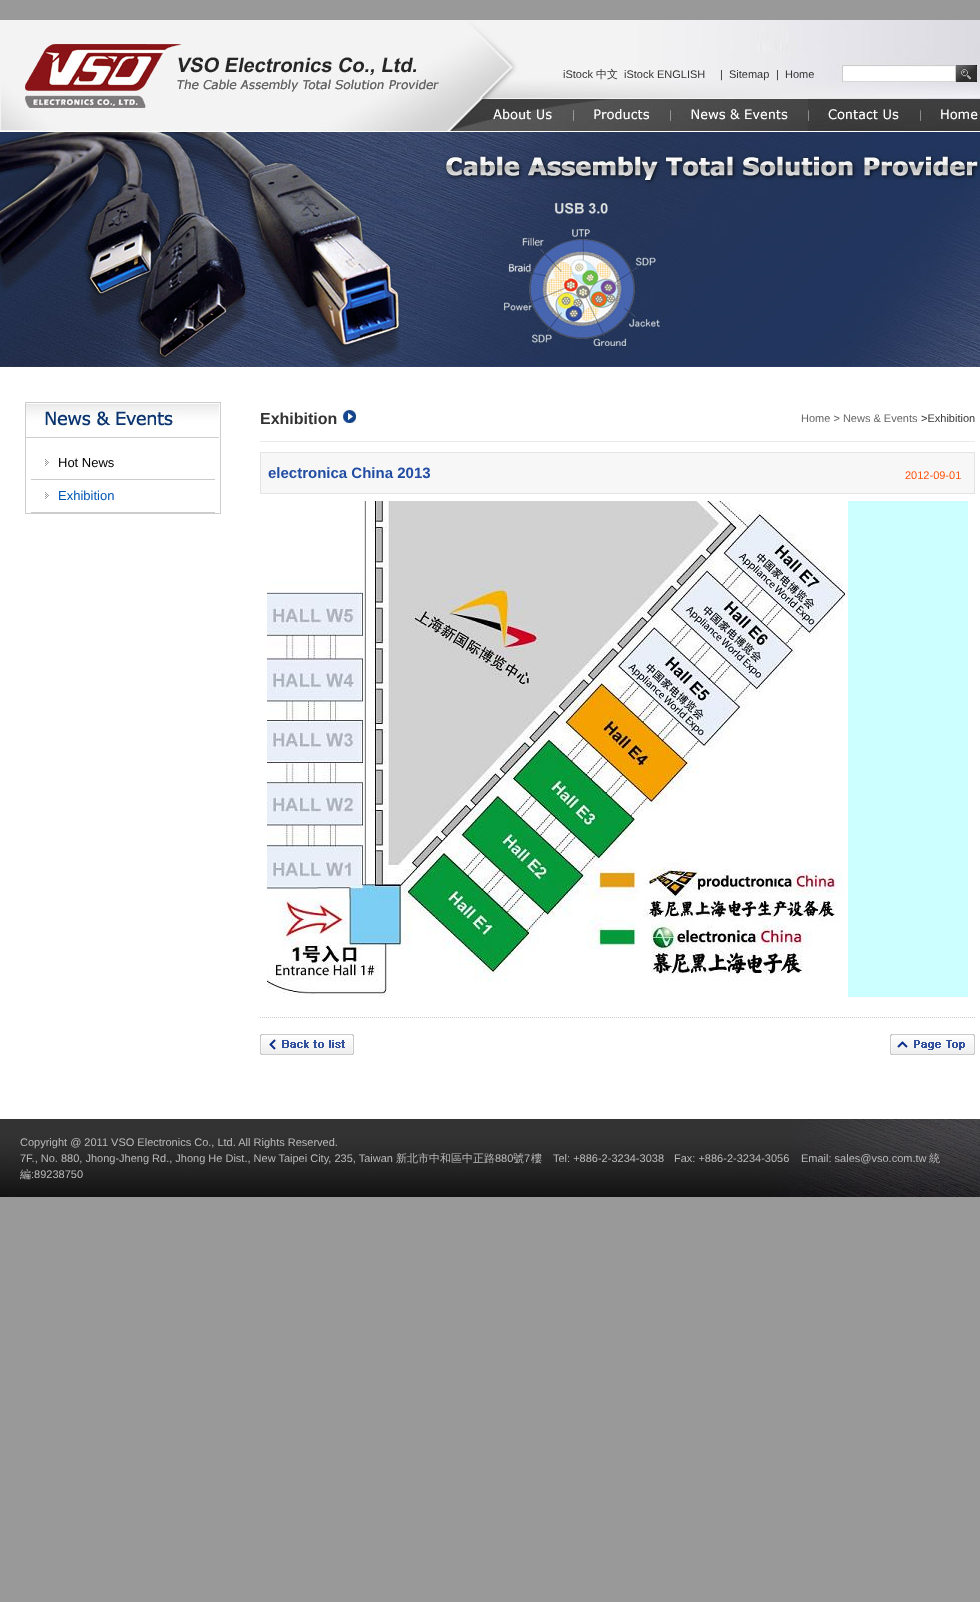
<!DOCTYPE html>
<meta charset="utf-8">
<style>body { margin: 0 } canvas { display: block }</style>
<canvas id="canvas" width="980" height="1602"></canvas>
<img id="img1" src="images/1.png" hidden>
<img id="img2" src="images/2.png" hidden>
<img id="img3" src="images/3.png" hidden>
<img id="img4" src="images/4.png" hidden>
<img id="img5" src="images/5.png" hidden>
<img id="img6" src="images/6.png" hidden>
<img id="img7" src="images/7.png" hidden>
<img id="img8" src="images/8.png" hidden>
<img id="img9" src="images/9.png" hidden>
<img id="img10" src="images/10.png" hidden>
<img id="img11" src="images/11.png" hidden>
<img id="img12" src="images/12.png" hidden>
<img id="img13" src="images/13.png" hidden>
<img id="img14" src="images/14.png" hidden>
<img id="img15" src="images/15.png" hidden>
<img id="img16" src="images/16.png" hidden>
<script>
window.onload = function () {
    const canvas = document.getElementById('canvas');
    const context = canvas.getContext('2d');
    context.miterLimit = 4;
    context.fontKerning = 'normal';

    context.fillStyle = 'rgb(153, 153, 153)';
    context.fillRect(0, 0, 980, 1602);
    context.fillStyle = 'rgb(255, 255, 255)';
    context.fillRect(0, 131, 980, 988);
    context.drawImage(document.getElementById('img1'), 0, 20, 446, 111);
    context.drawImage(document.getElementById('img2'), 446, 20, 534, 78);
    context.fillRect(902, 78, 32, 1);
    context.drawImage(document.getElementById('img3'), 446, 98, 127, 34);
    context.drawImage(document.getElementById('img4'), 573, 98, 97, 33);
    context.drawImage(document.getElementById('img5'), 670, 98, 138, 33);
    context.drawImage(document.getElementById('img6'), 808, 98, 112, 33);
    context.drawImage(document.getElementById('img7'), 920, 98, 60, 33);
    context.drawImage(document.getElementById('img8'), 0, 132, 980, 235);
    context.fillStyle = 'rgb(205, 205, 205)';
    context.fillRect(25, 402, 196, 112);
    context.fillStyle = 'rgb(255, 255, 255)';
    context.fillRect(26, 438, 194, 75);
    context.drawImage(document.getElementById('img9'), 26, 403, 194, 35);
    context.fillStyle = 'rgb(204, 204, 204)';
    context.fillRect(31, 479, 184, 1);
    context.drawImage(document.getElementById('img10'), 45, 459, 4, 7);
    context.fillRect(31, 512, 184, 1);
    context.drawImage(document.getElementById('img10'), 45, 492, 4, 7);
    context.fillStyle = 'rgb(234, 234, 234)';
    context.fillRect(260, 441, 715, 1);
    context.drawImage(document.getElementById('img11'), 342, 409, 15, 15);
    context.fillStyle = 'rgb(228, 228, 228)';
    context.fillRect(260, 452, 715, 42);
    context.fillStyle = 'rgb(247, 247, 247)';
    context.fillRect(261, 453, 713, 40);
    context.fillStyle = 'rgb(204, 255, 255)';
    context.fillRect(848, 501, 120, 496);
    context.drawImage(document.getElementById('img12'), 267, 501, 581, 496);
    context.drawImage(document.getElementById('img13'), 260, 1017, 715, 1);
    context.drawImage(document.getElementById('img14'), 260, 1034, 94, 21);
    context.drawImage(document.getElementById('img15'), 890, 1034, 85, 21);
    context.drawImage(document.getElementById('img16'), 0, 1119, 980, 78);
    context.font = '11px Liberation Sans';
    context.fillStyle = 'rgb(51, 51, 51)';
    context.fillText('iStock', 563, 78);
    context.font = '500 11px WenQuanYi Zen Hei';
    context.fillText('中文', 596, 78);
    context.font = '11px Liberation Sans';
    context.fillText('iStock ENGLISH', 624, 78);
    context.fillText('|', 720, 78);
    context.fillText('Sitemap', 729, 78);
    context.fillText('|', 776, 78);
    context.fillText('Home', 785, 78);
    context.font = '13px Liberation Sans';
    context.fillStyle = 'rgb(0, 0, 0)';
    context.fillText('Hot News', 58, 467);
    context.fillStyle = 'rgb(0, 86, 181)';
    context.fillText('Exhibition', 58, 500);
    context.font = 'bold 16px Liberation Sans';
    context.fillStyle = 'rgb(51, 51, 51)';
    context.fillText('Exhibition', 260, 424);
    context.font = '11px Liberation Sans';
    context.fillStyle = 'rgb(102, 102, 102)';
    context.fillText('Home > News & Events', 801, 422);
    context.fillStyle = 'rgb(51, 51, 51)';
    context.fillText('>Exhibition', 921, 422);
    context.font = 'bold 15px Liberation Sans';
    context.fillStyle = 'rgb(34, 77, 163)';
    context.fillText('electronica China 2013', 268, 478);
    context.font = '11px Liberation Sans';
    context.fillStyle = 'rgb(255, 83, 14)';
    context.fillText('2012-09-01', 905, 479);
    context.fillStyle = 'rgb(185, 186, 185)';
    context.fillText('Copyright @ 2011 VSO Electronics Co., Ltd. All Rights Reserved.', 20, 1146);
    context.fillText('7F., No. 880, Jhong-Jheng Rd., Jhong He Dist., New Taipei City, 235, Taiwan', 20, 1162);
    context.font = '500 11px WenQuanYi Zen Hei';
    context.fillText('新北市中和區中正路', 396, 1162);
    context.font = '11px Liberation Sans';
    context.fillText('880', 495, 1162);
    context.font = '500 11px WenQuanYi Zen Hei';
    context.fillText('號', 513, 1162);
    context.font = '11px Liberation Sans';
    context.fillText('7', 524, 1162);
    context.font = '500 11px WenQuanYi Zen Hei';
    context.fillText('樓', 531, 1162);
    context.font = '11px Liberation Sans';
    context.fillText('Tel: +886-2-3234-3038', 553, 1162);
    context.fillText('Fax: +886-2-3234-3056', 674, 1162);
    context.fillText('Email: sales@vso.com.tw', 801, 1162);
    context.font = '500 11px WenQuanYi Zen Hei';
    context.fillText('統', 929, 1162);
    context.fillText('編', 20, 1178);
    context.font = '11px Liberation Sans';
    context.fillText(':89238750', 31, 1178);
};
</script>
